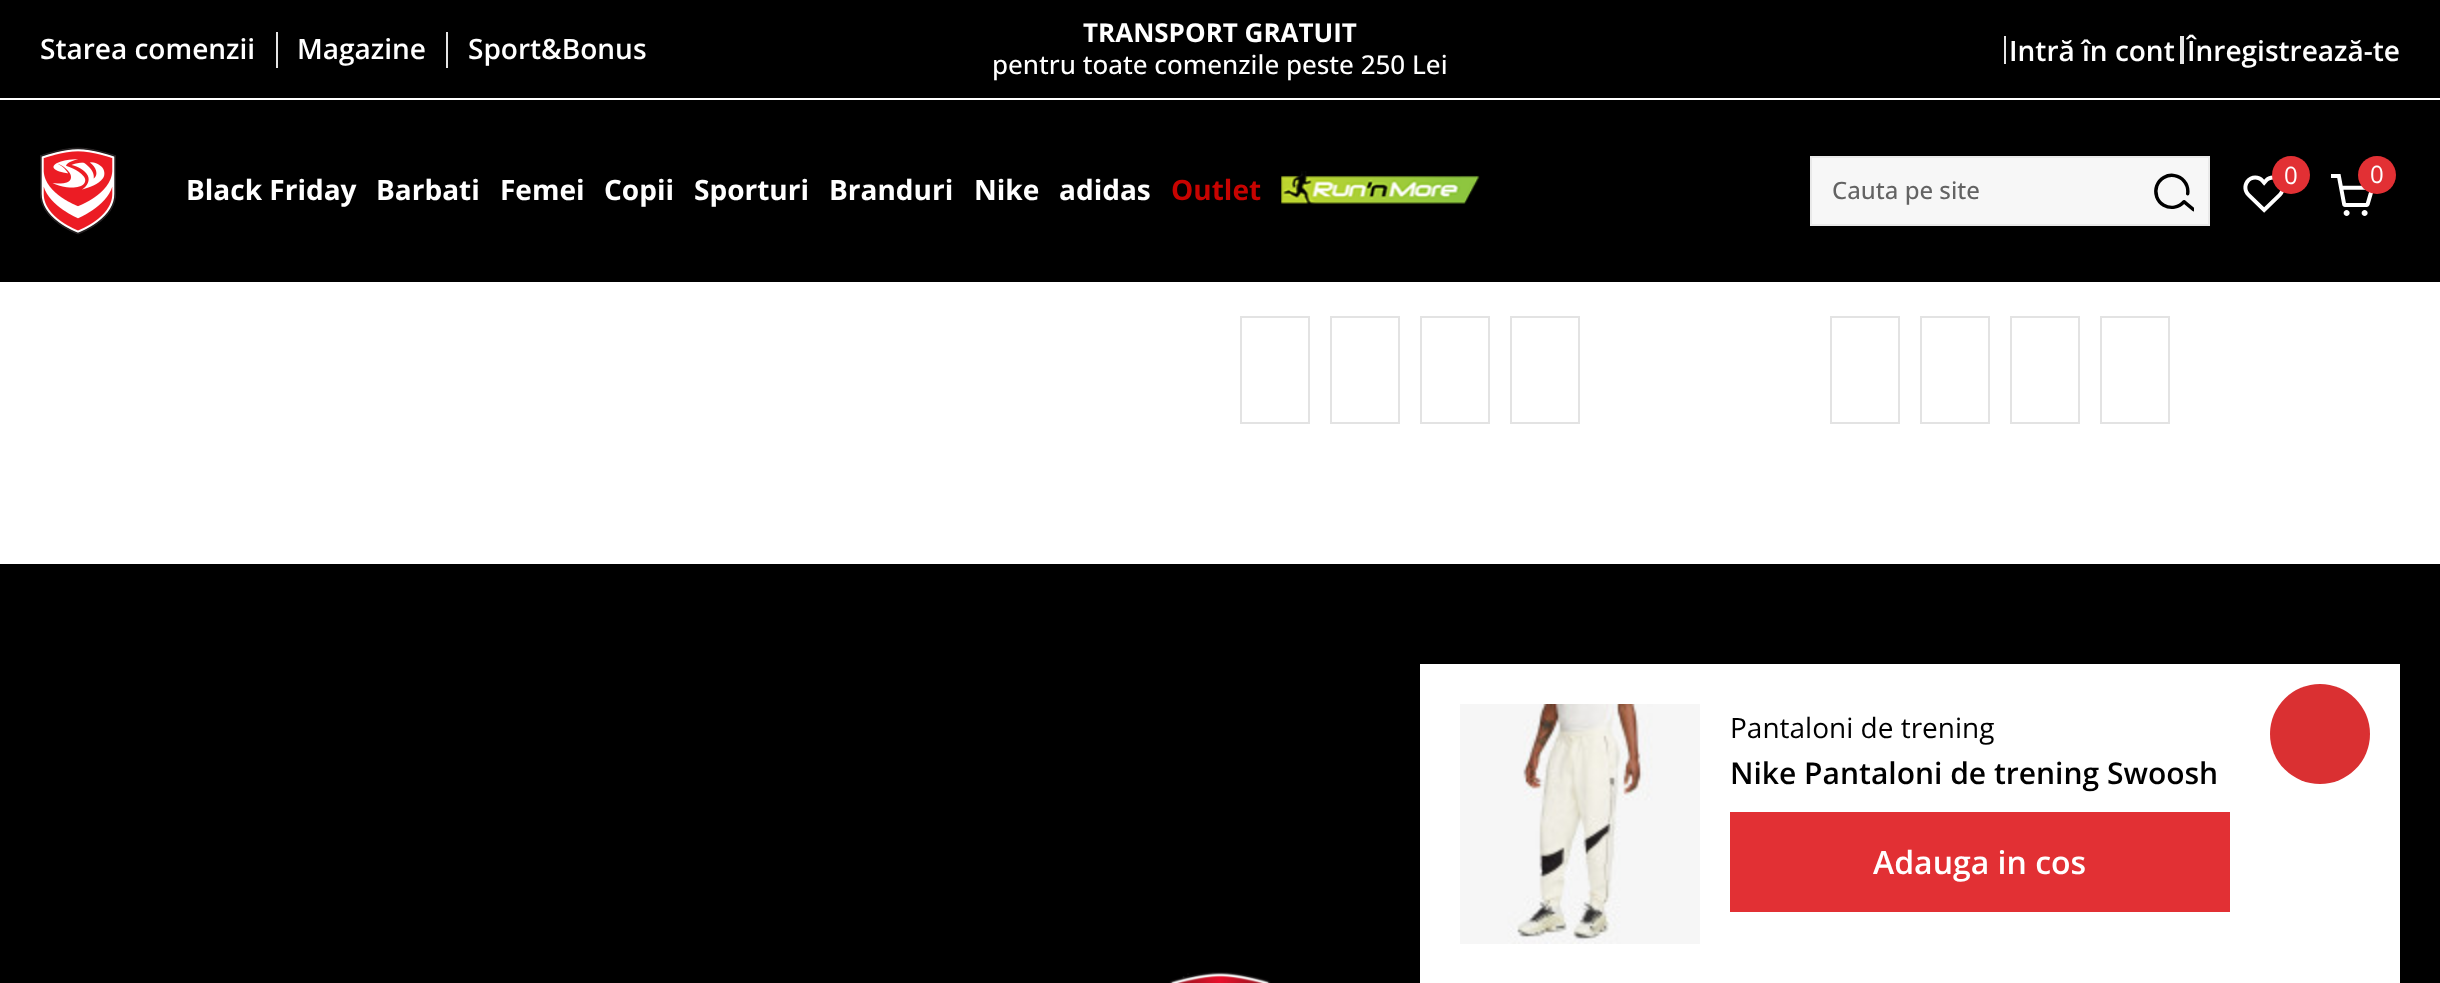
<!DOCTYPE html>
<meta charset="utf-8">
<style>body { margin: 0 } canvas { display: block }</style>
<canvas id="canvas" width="2440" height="983"></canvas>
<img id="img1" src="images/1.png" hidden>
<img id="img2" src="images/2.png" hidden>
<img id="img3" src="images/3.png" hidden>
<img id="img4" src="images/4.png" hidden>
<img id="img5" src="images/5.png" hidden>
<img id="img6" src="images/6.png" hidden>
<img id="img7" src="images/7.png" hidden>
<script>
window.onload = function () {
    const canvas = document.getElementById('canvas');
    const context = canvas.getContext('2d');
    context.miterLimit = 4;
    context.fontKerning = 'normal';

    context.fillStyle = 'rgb(255, 255, 255)';
    context.fillRect(0, 0, 2440, 983);
    context.fillStyle = 'rgb(0, 0, 0)';
    context.fillRect(0, 100, 2440, 182);
    context.fillRect(0, 0, 2440, 98);
    context.fillStyle = 'rgb(229, 229, 229)';
    context.fillRect(276, 32, 2, 36);
    context.fillRect(446, 32, 2, 36);
    context.fillRect(2004, 36, 2, 28);
    context.fillRect(2180, 36, 4, 28);
    context.drawImage(document.getElementById('img1'), 40, 147, 76, 88);
    context.drawImage(document.getElementById('img2'), 1281, 171, 199, 34);
    context.drawImage(document.getElementById('img3'), 2243, 175, 41, 38);
    context.fillStyle = 'rgb(226, 48, 52)';
    context.beginPath();
    context.arc(2291, 175, 19, 0, 2 * Math.PI);
    context.fill();
    context.drawImage(document.getElementById('img4'), 2331, 174, 42, 42);
    context.beginPath();
    context.arc(2377, 175, 19, 0, 2 * Math.PI);
    context.fill();
    context.fillStyle = 'rgb(247, 247, 247)';
    context.beginPath();
    context.rect(1811, 157, 398, 68);
    context.fill();
    context.strokeStyle = 'rgb(233, 233, 233)';
    context.lineWidth = 2;
    context.stroke();
    context.drawImage(document.getElementById('img5'), 2154, 173, 40, 39);
    context.fillStyle = 'rgb(0, 0, 0)';
    context.fillRect(0, 564, 2440, 419);
    context.drawImage(document.getElementById('img6'), 1169, 972, 102, 11);
    context.strokeStyle = 'rgb(227, 227, 227)';
    context.strokeRect(1241, 317, 68, 106);
    context.strokeRect(1331, 317, 68, 106);
    context.strokeRect(1421, 317, 68, 106);
    context.strokeRect(1511, 317, 68, 106);
    context.strokeRect(1831, 317, 68, 106);
    context.strokeRect(1921, 317, 68, 106);
    context.strokeRect(2011, 317, 68, 106);
    context.strokeRect(2101, 317, 68, 106);
    context.fillStyle = 'rgb(255, 255, 255)';
    context.fillRect(1420, 664, 980, 319);
    context.drawImage(document.getElementById('img7'), 1460, 704, 240, 240);
    context.fillStyle = 'rgb(226, 48, 52)';
    context.fillRect(1730, 812, 500, 100);
    context.fillStyle = 'rgb(218, 48, 50)';
    context.beginPath();
    context.arc(2320, 734, 50, 0, 2 * Math.PI);
    context.fill();
    context.font = '600 28px Open Sans';
    context.fillStyle = 'rgb(255, 255, 255)';
    context.fillText('Starea comenzii', 40, 59);
    context.fillText('Magazine', 297, 59);
    context.fillText('Sport&Bonus', 468, 59);
    context.font = 'bold 26px Open Sans';
    context.fillText('TRANSPORT GRATUIT', 1083, 42);
    context.font = '500 26px Open Sans';
    context.fillText('pentru toate comenzile peste 250 Lei', 992, 74);
    context.font = '600 28px Open Sans';
    context.fillText('Intră în cont', 2009, 61);
    context.fillText('Înregistrează-te', 2187, 61);
    context.font = 'bold 28px Open Sans';
    context.fillText('Black Friday', 186, 200);
    context.fillText('Barbati', 376, 200);
    context.fillText('Femei', 500, 200);
    context.fillText('Copii', 604, 200);
    context.fillText('Sporturi', 694, 200);
    context.fillText('Branduri', 829, 200);
    context.fillText('Nike', 974, 200);
    context.fillText('adidas', 1059, 200);
    context.fillStyle = 'rgb(199, 3, 0)';
    context.fillText('Outlet', 1171, 200);
    context.font = '24px Open Sans';
    context.fillStyle = 'rgb(255, 255, 255)';
    context.fillText('0', 2284, 184);
    context.fillText('0', 2370, 183);
    context.font = '500 24px Open Sans';
    context.fillStyle = 'rgb(99, 99, 99)';
    context.fillText('Cauta pe site', 1832, 199);
    context.font = '28px Open Sans';
    context.fillStyle = 'rgb(0, 0, 0)';
    context.fillText('Pantaloni de trening', 1730, 738);
    context.font = '600 30px Open Sans';
    context.fillText('Nike Pantaloni de trening Swoosh', 1730, 784);
    context.font = '600 32px Open Sans';
    context.fillStyle = 'rgb(255, 255, 255)';
    context.fillText('Adauga in cos', 1873, 874);
};
</script>
